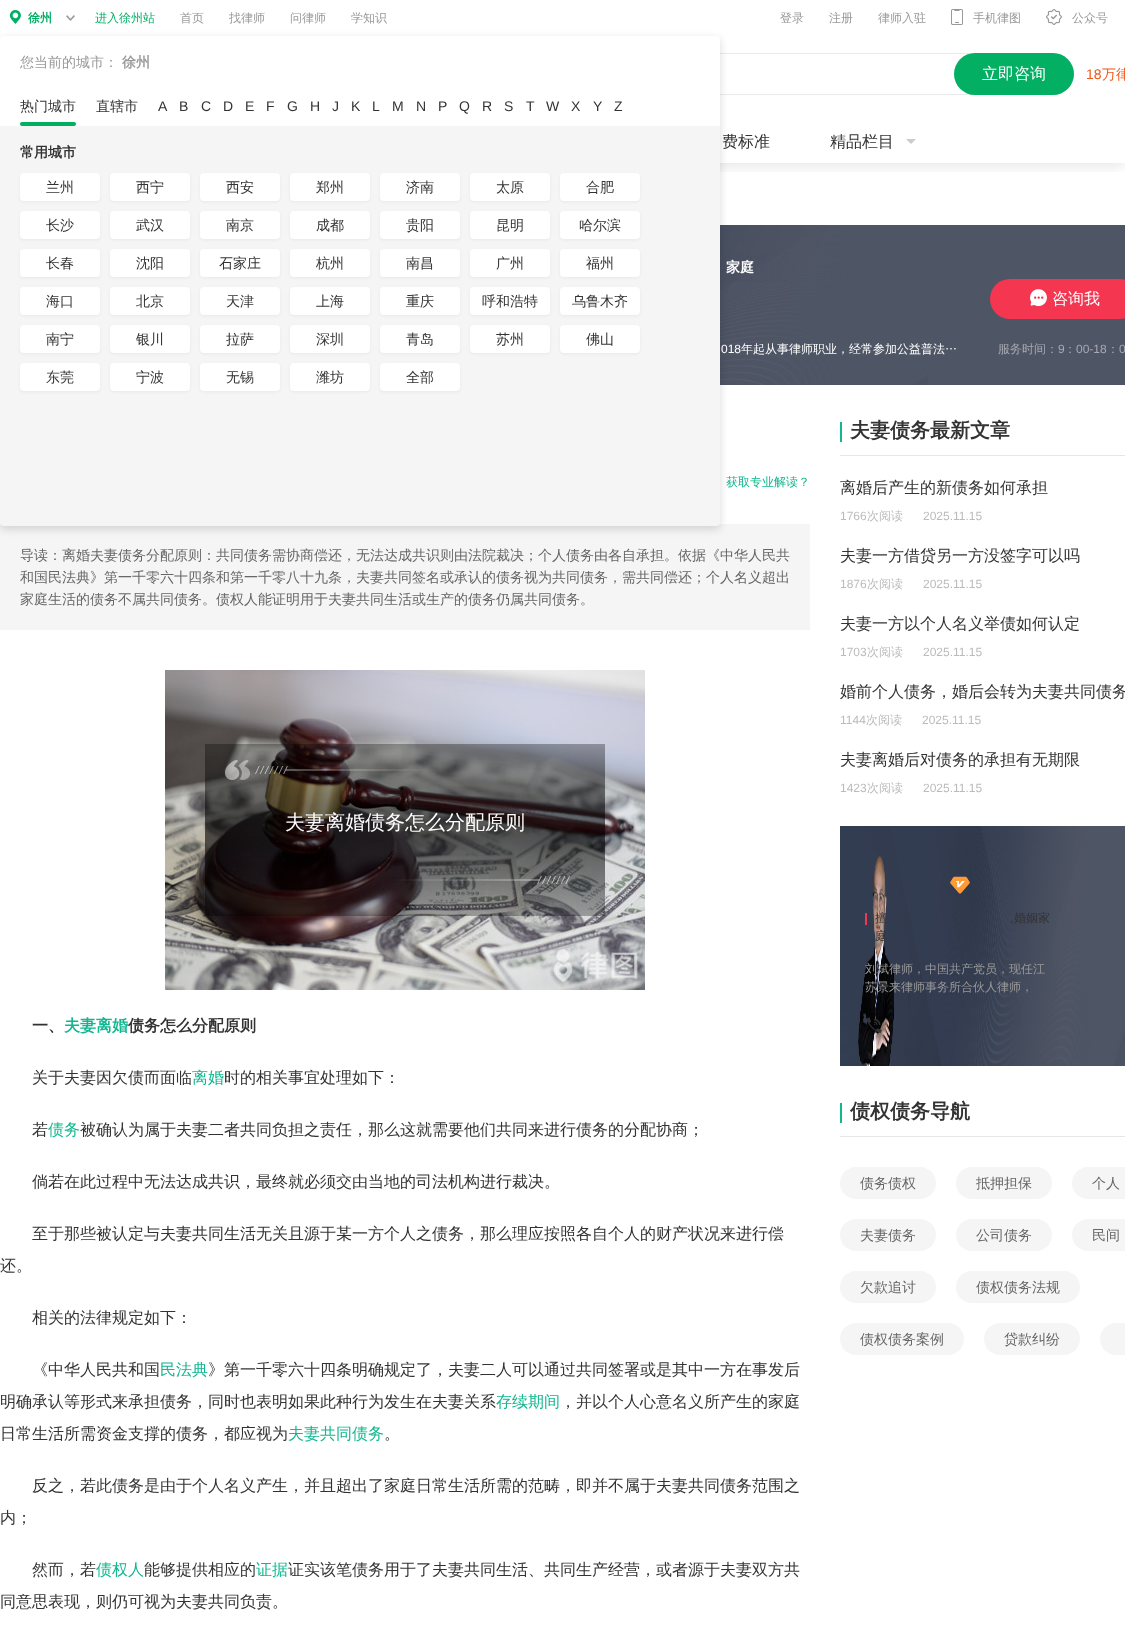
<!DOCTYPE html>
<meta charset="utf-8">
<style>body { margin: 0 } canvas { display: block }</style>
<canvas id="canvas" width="1125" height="1626"></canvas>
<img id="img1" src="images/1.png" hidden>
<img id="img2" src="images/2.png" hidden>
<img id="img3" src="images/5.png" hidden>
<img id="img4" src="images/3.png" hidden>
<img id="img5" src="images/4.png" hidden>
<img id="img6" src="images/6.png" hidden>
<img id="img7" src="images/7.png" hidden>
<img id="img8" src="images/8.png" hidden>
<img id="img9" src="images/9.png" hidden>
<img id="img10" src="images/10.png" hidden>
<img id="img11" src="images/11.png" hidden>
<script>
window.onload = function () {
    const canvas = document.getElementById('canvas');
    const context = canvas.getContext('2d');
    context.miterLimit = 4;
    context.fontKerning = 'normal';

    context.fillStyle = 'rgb(255, 255, 255)';
    context.fillRect(0, 0, 1125, 1626);
    context.save();
    context.beginPath();
    context.rect(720, 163, 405, 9);
    context.clip();
    context.fillStyle = 'rgba(0, 0, 0, 0.1)';
    context.filter = 'blur(7.5px)';
    context.beginPath();
    context.rect(0, 3, 1125, 163);
    context.fill();
    context.filter = 'none';
    context.restore();
    context.drawImage(document.getElementById('img1'), 9, 10, 12, 14);
    context.drawImage(document.getElementById('img2'), 66, 15, 9, 6);
    context.beginPath();
    context.roundRect(474.5, 53.5, 599, 41, 20.5);
    context.strokeStyle = 'rgb(235, 235, 235)';
    context.stroke();
    context.drawImage(document.getElementById('img3'), 720, 225, 208, 160);
    context.fillStyle = 'rgb(245, 245, 245)';
    context.fillRect(0, 524, 810, 106);
    context.fillStyle = 'rgba(0, 0, 0, 0.15)';
    context.filter = 'blur(4px)';
    context.beginPath();
    context.roundRect(0, 39, 720, 490, 4);
    context.fill();
    context.filter = 'none';
    context.fillStyle = 'rgb(245, 245, 245)';
    context.beginPath();
    context.roundRect(0, 36, 720, 490, 4);
    context.fill();
    context.fillStyle = 'rgb(255, 255, 255)';
    context.beginPath();
    context.roundRect(0, 36, 720, 90, [4, 4, 0, 0]);
    context.fill();
    context.fillStyle = 'rgb(1, 175, 99)';
    context.beginPath();
    context.roundRect(20, 122, 56, 4, 2);
    context.fill();
    context.fillStyle = 'rgba(0, 0, 0, 0.05)';
    context.filter = 'blur(1.5px)';
    context.beginPath();
    context.roundRect(20, 174, 80, 28, 4);
    context.fill();
    context.filter = 'none';
    context.fillStyle = 'rgb(255, 255, 255)';
    context.beginPath();
    context.roundRect(20, 173, 80, 28, 4);
    context.fill();
    context.fillStyle = 'rgba(0, 0, 0, 0.05)';
    context.filter = 'blur(1.5px)';
    context.beginPath();
    context.roundRect(110, 174, 80, 28, 4);
    context.fill();
    context.filter = 'none';
    context.fillStyle = 'rgb(255, 255, 255)';
    context.beginPath();
    context.roundRect(110, 173, 80, 28, 4);
    context.fill();
    context.fillStyle = 'rgba(0, 0, 0, 0.05)';
    context.filter = 'blur(1.5px)';
    context.beginPath();
    context.roundRect(200, 174, 80, 28, 4);
    context.fill();
    context.filter = 'none';
    context.fillStyle = 'rgb(255, 255, 255)';
    context.beginPath();
    context.roundRect(200, 173, 80, 28, 4);
    context.fill();
    context.fillStyle = 'rgba(0, 0, 0, 0.05)';
    context.filter = 'blur(1.5px)';
    context.beginPath();
    context.roundRect(290, 174, 80, 28, 4);
    context.fill();
    context.filter = 'none';
    context.fillStyle = 'rgb(255, 255, 255)';
    context.beginPath();
    context.roundRect(290, 173, 80, 28, 4);
    context.fill();
    context.fillStyle = 'rgba(0, 0, 0, 0.05)';
    context.filter = 'blur(1.5px)';
    context.beginPath();
    context.roundRect(380, 174, 80, 28, 4);
    context.fill();
    context.filter = 'none';
    context.fillStyle = 'rgb(255, 255, 255)';
    context.beginPath();
    context.roundRect(380, 173, 80, 28, 4);
    context.fill();
    context.fillStyle = 'rgba(0, 0, 0, 0.05)';
    context.filter = 'blur(1.5px)';
    context.beginPath();
    context.roundRect(470, 174, 80, 28, 4);
    context.fill();
    context.filter = 'none';
    context.fillStyle = 'rgb(255, 255, 255)';
    context.beginPath();
    context.roundRect(470, 173, 80, 28, 4);
    context.fill();
    context.fillStyle = 'rgba(0, 0, 0, 0.05)';
    context.filter = 'blur(1.5px)';
    context.beginPath();
    context.roundRect(560, 174, 80, 28, 4);
    context.fill();
    context.filter = 'none';
    context.fillStyle = 'rgb(255, 255, 255)';
    context.beginPath();
    context.roundRect(560, 173, 80, 28, 4);
    context.fill();
    context.fillStyle = 'rgba(0, 0, 0, 0.05)';
    context.filter = 'blur(1.5px)';
    context.beginPath();
    context.roundRect(20, 212, 80, 28, 4);
    context.fill();
    context.filter = 'none';
    context.fillStyle = 'rgb(255, 255, 255)';
    context.beginPath();
    context.roundRect(20, 211, 80, 28, 4);
    context.fill();
    context.fillStyle = 'rgba(0, 0, 0, 0.05)';
    context.filter = 'blur(1.5px)';
    context.beginPath();
    context.roundRect(110, 212, 80, 28, 4);
    context.fill();
    context.filter = 'none';
    context.fillStyle = 'rgb(255, 255, 255)';
    context.beginPath();
    context.roundRect(110, 211, 80, 28, 4);
    context.fill();
    context.fillStyle = 'rgba(0, 0, 0, 0.05)';
    context.filter = 'blur(1.5px)';
    context.beginPath();
    context.roundRect(200, 212, 80, 28, 4);
    context.fill();
    context.filter = 'none';
    context.fillStyle = 'rgb(255, 255, 255)';
    context.beginPath();
    context.roundRect(200, 211, 80, 28, 4);
    context.fill();
    context.fillStyle = 'rgba(0, 0, 0, 0.05)';
    context.filter = 'blur(1.5px)';
    context.beginPath();
    context.roundRect(290, 212, 80, 28, 4);
    context.fill();
    context.filter = 'none';
    context.fillStyle = 'rgb(255, 255, 255)';
    context.beginPath();
    context.roundRect(290, 211, 80, 28, 4);
    context.fill();
    context.fillStyle = 'rgba(0, 0, 0, 0.05)';
    context.filter = 'blur(1.5px)';
    context.beginPath();
    context.roundRect(380, 212, 80, 28, 4);
    context.fill();
    context.filter = 'none';
    context.fillStyle = 'rgb(255, 255, 255)';
    context.beginPath();
    context.roundRect(380, 211, 80, 28, 4);
    context.fill();
    context.fillStyle = 'rgba(0, 0, 0, 0.05)';
    context.filter = 'blur(1.5px)';
    context.beginPath();
    context.roundRect(470, 212, 80, 28, 4);
    context.fill();
    context.filter = 'none';
    context.fillStyle = 'rgb(255, 255, 255)';
    context.beginPath();
    context.roundRect(470, 211, 80, 28, 4);
    context.fill();
    context.fillStyle = 'rgba(0, 0, 0, 0.05)';
    context.filter = 'blur(1.5px)';
    context.beginPath();
    context.roundRect(560, 212, 80, 28, 4);
    context.fill();
    context.filter = 'none';
    context.fillStyle = 'rgb(255, 255, 255)';
    context.beginPath();
    context.roundRect(560, 211, 80, 28, 4);
    context.fill();
    context.fillStyle = 'rgba(0, 0, 0, 0.05)';
    context.filter = 'blur(1.5px)';
    context.beginPath();
    context.roundRect(20, 250, 80, 28, 4);
    context.fill();
    context.filter = 'none';
    context.fillStyle = 'rgb(255, 255, 255)';
    context.beginPath();
    context.roundRect(20, 249, 80, 28, 4);
    context.fill();
    context.fillStyle = 'rgba(0, 0, 0, 0.05)';
    context.filter = 'blur(1.5px)';
    context.beginPath();
    context.roundRect(110, 250, 80, 28, 4);
    context.fill();
    context.filter = 'none';
    context.fillStyle = 'rgb(255, 255, 255)';
    context.beginPath();
    context.roundRect(110, 249, 80, 28, 4);
    context.fill();
    context.fillStyle = 'rgba(0, 0, 0, 0.05)';
    context.filter = 'blur(1.5px)';
    context.beginPath();
    context.roundRect(200, 250, 80, 28, 4);
    context.fill();
    context.filter = 'none';
    context.fillStyle = 'rgb(255, 255, 255)';
    context.beginPath();
    context.roundRect(200, 249, 80, 28, 4);
    context.fill();
    context.fillStyle = 'rgba(0, 0, 0, 0.05)';
    context.filter = 'blur(1.5px)';
    context.beginPath();
    context.roundRect(290, 250, 80, 28, 4);
    context.fill();
    context.filter = 'none';
    context.fillStyle = 'rgb(255, 255, 255)';
    context.beginPath();
    context.roundRect(290, 249, 80, 28, 4);
    context.fill();
    context.fillStyle = 'rgba(0, 0, 0, 0.05)';
    context.filter = 'blur(1.5px)';
    context.beginPath();
    context.roundRect(380, 250, 80, 28, 4);
    context.fill();
    context.filter = 'none';
    context.fillStyle = 'rgb(255, 255, 255)';
    context.beginPath();
    context.roundRect(380, 249, 80, 28, 4);
    context.fill();
    context.fillStyle = 'rgba(0, 0, 0, 0.05)';
    context.filter = 'blur(1.5px)';
    context.beginPath();
    context.roundRect(470, 250, 80, 28, 4);
    context.fill();
    context.filter = 'none';
    context.fillStyle = 'rgb(255, 255, 255)';
    context.beginPath();
    context.roundRect(470, 249, 80, 28, 4);
    context.fill();
    context.fillStyle = 'rgba(0, 0, 0, 0.05)';
    context.filter = 'blur(1.5px)';
    context.beginPath();
    context.roundRect(560, 250, 80, 28, 4);
    context.fill();
    context.filter = 'none';
    context.fillStyle = 'rgb(255, 255, 255)';
    context.beginPath();
    context.roundRect(560, 249, 80, 28, 4);
    context.fill();
    context.fillStyle = 'rgba(0, 0, 0, 0.05)';
    context.filter = 'blur(1.5px)';
    context.beginPath();
    context.roundRect(20, 288, 80, 28, 4);
    context.fill();
    context.filter = 'none';
    context.fillStyle = 'rgb(255, 255, 255)';
    context.beginPath();
    context.roundRect(20, 287, 80, 28, 4);
    context.fill();
    context.fillStyle = 'rgba(0, 0, 0, 0.05)';
    context.filter = 'blur(1.5px)';
    context.beginPath();
    context.roundRect(110, 288, 80, 28, 4);
    context.fill();
    context.filter = 'none';
    context.fillStyle = 'rgb(255, 255, 255)';
    context.beginPath();
    context.roundRect(110, 287, 80, 28, 4);
    context.fill();
    context.fillStyle = 'rgba(0, 0, 0, 0.05)';
    context.filter = 'blur(1.5px)';
    context.beginPath();
    context.roundRect(200, 288, 80, 28, 4);
    context.fill();
    context.filter = 'none';
    context.fillStyle = 'rgb(255, 255, 255)';
    context.beginPath();
    context.roundRect(200, 287, 80, 28, 4);
    context.fill();
    context.fillStyle = 'rgba(0, 0, 0, 0.05)';
    context.filter = 'blur(1.5px)';
    context.beginPath();
    context.roundRect(290, 288, 80, 28, 4);
    context.fill();
    context.filter = 'none';
    context.fillStyle = 'rgb(255, 255, 255)';
    context.beginPath();
    context.roundRect(290, 287, 80, 28, 4);
    context.fill();
    context.fillStyle = 'rgba(0, 0, 0, 0.05)';
    context.filter = 'blur(1.5px)';
    context.beginPath();
    context.roundRect(380, 288, 80, 28, 4);
    context.fill();
    context.filter = 'none';
    context.fillStyle = 'rgb(255, 255, 255)';
    context.beginPath();
    context.roundRect(380, 287, 80, 28, 4);
    context.fill();
    context.fillStyle = 'rgba(0, 0, 0, 0.05)';
    context.filter = 'blur(1.5px)';
    context.beginPath();
    context.roundRect(470, 288, 80, 28, 4);
    context.fill();
    context.filter = 'none';
    context.fillStyle = 'rgb(255, 255, 255)';
    context.beginPath();
    context.roundRect(470, 287, 80, 28, 4);
    context.fill();
    context.fillStyle = 'rgba(0, 0, 0, 0.05)';
    context.filter = 'blur(1.5px)';
    context.beginPath();
    context.roundRect(560, 288, 80, 28, 4);
    context.fill();
    context.filter = 'none';
    context.fillStyle = 'rgb(255, 255, 255)';
    context.beginPath();
    context.roundRect(560, 287, 80, 28, 4);
    context.fill();
    context.fillStyle = 'rgba(0, 0, 0, 0.05)';
    context.filter = 'blur(1.5px)';
    context.beginPath();
    context.roundRect(20, 326, 80, 28, 4);
    context.fill();
    context.filter = 'none';
    context.fillStyle = 'rgb(255, 255, 255)';
    context.beginPath();
    context.roundRect(20, 325, 80, 28, 4);
    context.fill();
    context.fillStyle = 'rgba(0, 0, 0, 0.05)';
    context.filter = 'blur(1.5px)';
    context.beginPath();
    context.roundRect(110, 326, 80, 28, 4);
    context.fill();
    context.filter = 'none';
    context.fillStyle = 'rgb(255, 255, 255)';
    context.beginPath();
    context.roundRect(110, 325, 80, 28, 4);
    context.fill();
    context.fillStyle = 'rgba(0, 0, 0, 0.05)';
    context.filter = 'blur(1.5px)';
    context.beginPath();
    context.roundRect(200, 326, 80, 28, 4);
    context.fill();
    context.filter = 'none';
    context.fillStyle = 'rgb(255, 255, 255)';
    context.beginPath();
    context.roundRect(200, 325, 80, 28, 4);
    context.fill();
    context.fillStyle = 'rgba(0, 0, 0, 0.05)';
    context.filter = 'blur(1.5px)';
    context.beginPath();
    context.roundRect(290, 326, 80, 28, 4);
    context.fill();
    context.filter = 'none';
    context.fillStyle = 'rgb(255, 255, 255)';
    context.beginPath();
    context.roundRect(290, 325, 80, 28, 4);
    context.fill();
    context.fillStyle = 'rgba(0, 0, 0, 0.05)';
    context.filter = 'blur(1.5px)';
    context.beginPath();
    context.roundRect(380, 326, 80, 28, 4);
    context.fill();
    context.filter = 'none';
    context.fillStyle = 'rgb(255, 255, 255)';
    context.beginPath();
    context.roundRect(380, 325, 80, 28, 4);
    context.fill();
    context.fillStyle = 'rgba(0, 0, 0, 0.05)';
    context.filter = 'blur(1.5px)';
    context.beginPath();
    context.roundRect(470, 326, 80, 28, 4);
    context.fill();
    context.filter = 'none';
    context.fillStyle = 'rgb(255, 255, 255)';
    context.beginPath();
    context.roundRect(470, 325, 80, 28, 4);
    context.fill();
    context.fillStyle = 'rgba(0, 0, 0, 0.05)';
    context.filter = 'blur(1.5px)';
    context.beginPath();
    context.roundRect(560, 326, 80, 28, 4);
    context.fill();
    context.filter = 'none';
    context.fillStyle = 'rgb(255, 255, 255)';
    context.beginPath();
    context.roundRect(560, 325, 80, 28, 4);
    context.fill();
    context.fillStyle = 'rgba(0, 0, 0, 0.05)';
    context.filter = 'blur(1.5px)';
    context.beginPath();
    context.roundRect(20, 364, 80, 28, 4);
    context.fill();
    context.filter = 'none';
    context.fillStyle = 'rgb(255, 255, 255)';
    context.beginPath();
    context.roundRect(20, 363, 80, 28, 4);
    context.fill();
    context.fillStyle = 'rgba(0, 0, 0, 0.05)';
    context.filter = 'blur(1.5px)';
    context.beginPath();
    context.roundRect(110, 364, 80, 28, 4);
    context.fill();
    context.filter = 'none';
    context.fillStyle = 'rgb(255, 255, 255)';
    context.beginPath();
    context.roundRect(110, 363, 80, 28, 4);
    context.fill();
    context.fillStyle = 'rgba(0, 0, 0, 0.05)';
    context.filter = 'blur(1.5px)';
    context.beginPath();
    context.roundRect(200, 364, 80, 28, 4);
    context.fill();
    context.filter = 'none';
    context.fillStyle = 'rgb(255, 255, 255)';
    context.beginPath();
    context.roundRect(200, 363, 80, 28, 4);
    context.fill();
    context.fillStyle = 'rgba(0, 0, 0, 0.05)';
    context.filter = 'blur(1.5px)';
    context.beginPath();
    context.roundRect(290, 364, 80, 28, 4);
    context.fill();
    context.filter = 'none';
    context.fillStyle = 'rgb(255, 255, 255)';
    context.beginPath();
    context.roundRect(290, 363, 80, 28, 4);
    context.fill();
    context.fillStyle = 'rgba(0, 0, 0, 0.05)';
    context.filter = 'blur(1.5px)';
    context.beginPath();
    context.roundRect(380, 364, 80, 28, 4);
    context.fill();
    context.filter = 'none';
    context.fillStyle = 'rgb(255, 255, 255)';
    context.beginPath();
    context.roundRect(380, 363, 80, 28, 4);
    context.fill();
    context.drawImage(document.getElementById('img4'), 951, 9, 12, 16);
    context.drawImage(document.getElementById('img5'), 1046, 9, 16, 16);
    context.fillStyle = 'rgb(2, 175, 99)';
    context.beginPath();
    context.roundRect(954, 53, 120, 42, 21);
    context.fill();
    context.fillStyle = 'rgb(204, 204, 204)';
    context.beginPath();
    context.moveTo(906, 139);
    context.lineTo(916, 139);
    context.lineTo(911, 144);
    context.closePath();
    context.fill();
    context.fillStyle = 'rgb(78, 85, 100)';
    context.fillRect(928, 225, 197, 160);
    context.fillStyle = 'rgb(244, 54, 81)';
    context.beginPath();
    context.roundRect(990, 279, 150, 40, 20);
    context.fill();
    context.drawImage(document.getElementById('img6'), 1030, 289, 17, 18);
    context.drawImage(document.getElementById('img7'), 165, 670, 480, 320);
    context.drawImage(document.getElementById('img8'), 205, 744, 400, 172);
    context.fillStyle = 'rgb(230, 230, 230)';
    context.fillRect(840, 455, 285, 1);
    context.fillStyle = 'rgb(17, 183, 144)';
    context.fillRect(840, 422, 2, 20);
    context.drawImage(document.getElementById('img9'), 840, 826, 285, 240);
    context.drawImage(document.getElementById('img10'), 950, 876, 20, 18);
    context.fillStyle = 'rgb(244, 54, 81)';
    context.fillRect(865, 913, 2, 12);
    context.drawImage(document.getElementById('img11'), 866, 1017, 16, 16);
    context.fillStyle = 'rgb(230, 230, 230)';
    context.fillRect(840, 1136, 285, 1);
    context.fillStyle = 'rgb(17, 183, 144)';
    context.fillRect(840, 1103, 2, 20);
    context.fillStyle = 'rgb(245, 245, 245)';
    context.beginPath();
    context.roundRect(840, 1167, 96, 32, 16);
    context.fill();
    context.beginPath();
    context.roundRect(956, 1167, 96, 32, 16);
    context.fill();
    context.beginPath();
    context.roundRect(1072, 1167, 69, 32, 16);
    context.fill();
    context.beginPath();
    context.roundRect(840, 1219, 96, 32, 16);
    context.fill();
    context.beginPath();
    context.roundRect(956, 1219, 96, 32, 16);
    context.fill();
    context.beginPath();
    context.roundRect(1072, 1219, 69, 32, 16);
    context.fill();
    context.beginPath();
    context.roundRect(840, 1271, 96, 32, 16);
    context.fill();
    context.beginPath();
    context.roundRect(956, 1271, 124, 32, 16);
    context.fill();
    context.beginPath();
    context.roundRect(840, 1323, 124, 32, 16);
    context.fill();
    context.beginPath();
    context.roundRect(984, 1323, 96, 32, 16);
    context.fill();
    context.beginPath();
    context.roundRect(1100, 1323, 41, 32, 16);
    context.fill();
    context.font = 'bold 12px WenQuanYi Zen Hei';
    context.fillStyle = 'rgb(1, 175, 99)';
    context.fillText('徐州', 28, 22);
    context.font = '500 14px WenQuanYi Zen Hei';
    context.fillStyle = 'rgb(153, 153, 153)';
    context.fillText('您当前的城市：', 20, 67);
    context.font = 'bold 14px WenQuanYi Zen Hei';
    context.fillText('徐州', 122, 67);
    context.font = '500 14px WenQuanYi Zen Hei';
    context.fillStyle = 'rgb(51, 51, 51)';
    context.fillText('热门城市', 20, 111);
    context.fillText('直辖市', 96, 111);
    context.font = '14px Liberation Sans';
    context.fillText('A', 158, 111);
    context.fillText('B', 179, 111);
    context.fillText('C', 201, 111);
    context.fillText('D', 223, 111);
    context.fillText('E', 245, 111);
    context.fillText('F', 266, 111);
    context.fillText('G', 287, 111);
    context.fillText('H', 310, 111);
    context.fillText('J', 332, 111);
    context.fillText('K', 351, 111);
    context.fillText('L', 372, 111);
    context.fillText('M', 392, 111);
    context.fillText('N', 416, 111);
    context.fillText('P', 438, 111);
    context.fillText('Q', 459, 111);
    context.fillText('R', 482, 111);
    context.fillText('S', 504, 111);
    context.fillText('T', 526, 111);
    context.fillText('W', 546, 111);
    context.fillText('X', 571, 111);
    context.fillText('Y', 593, 111);
    context.fillText('Z', 614, 111);
    context.font = 'bold 14px WenQuanYi Zen Hei';
    context.fillText('常用城市', 20, 157);
    context.font = '500 14px WenQuanYi Zen Hei';
    context.fillText('兰州', 46, 192);
    context.fillText('西宁', 136, 192);
    context.fillText('西安', 226, 192);
    context.fillText('郑州', 316, 192);
    context.fillText('济南', 406, 192);
    context.fillText('太原', 496, 192);
    context.fillText('合肥', 586, 192);
    context.fillText('长沙', 46, 230);
    context.fillText('武汉', 136, 230);
    context.fillText('南京', 226, 230);
    context.fillText('成都', 316, 230);
    context.fillText('贵阳', 406, 230);
    context.fillText('昆明', 496, 230);
    context.fillText('哈尔滨', 579, 230);
    context.fillText('长春', 46, 268);
    context.fillText('沈阳', 136, 268);
    context.fillText('石家庄', 219, 268);
    context.fillText('杭州', 316, 268);
    context.fillText('南昌', 406, 268);
    context.fillText('广州', 496, 268);
    context.fillText('福州', 586, 268);
    context.fillText('海口', 46, 306);
    context.fillText('北京', 136, 306);
    context.fillText('天津', 226, 306);
    context.fillText('上海', 316, 306);
    context.fillText('重庆', 406, 306);
    context.fillText('呼和浩特', 482, 306);
    context.fillText('乌鲁木齐', 572, 306);
    context.fillText('南宁', 46, 344);
    context.fillText('银川', 136, 344);
    context.fillText('拉萨', 226, 344);
    context.fillText('深圳', 316, 344);
    context.fillText('青岛', 406, 344);
    context.fillText('苏州', 496, 344);
    context.fillText('佛山', 586, 344);
    context.fillText('东莞', 46, 382);
    context.fillText('宁波', 136, 382);
    context.fillText('无锡', 226, 382);
    context.fillText('潍坊', 316, 382);
    context.fillText('全部', 406, 382);
    context.font = '500 12px WenQuanYi Zen Hei';
    context.fillStyle = 'rgb(153, 153, 153)';
    context.fillText('登录', 780, 22);
    context.fillText('注册', 829, 22);
    context.fillText('律师入驻', 878, 22);
    context.fillText('手机律图', 973, 22);
    context.fillText('公众号', 1072, 22);
    context.fillStyle = 'rgb(1, 175, 99)';
    context.fillText('进入徐州站', 95, 22);
    context.fillStyle = 'rgb(153, 153, 153)';
    context.fillText('首页', 180, 22);
    context.fillText('找律师', 229, 22);
    context.fillText('问律师', 290, 22);
    context.fillText('学知识', 351, 22);
    context.font = '500 16px WenQuanYi Zen Hei';
    context.fillStyle = 'rgb(255, 255, 255)';
    context.fillText('立即咨询', 982, 79);
    context.font = '14px Liberation Sans';
    context.fillStyle = 'rgb(242, 86, 24)';
    context.fillText('18', 1086, 79);
    context.font = '500 14px WenQuanYi Zen Hei';
    context.fillText('万律', 1102, 79);
    context.font = '500 16px WenQuanYi Zen Hei';
    context.fillStyle = 'rgb(51, 51, 51)';
    context.fillText('费标准', 722, 147);
    context.fillText('精品栏目', 830, 147);
    context.font = 'bold 14px WenQuanYi Zen Hei';
    context.fillStyle = 'rgb(255, 255, 255)';
    context.fillText('家庭', 726, 272);
    context.font = '12px Liberation Sans';
    context.fillText('018', 721, 353);
    context.font = '500 12px WenQuanYi Zen Hei';
    context.fillText('年起从事律师职业，经常参加公益普法…', 741, 353);
    context.fillStyle = 'rgb(167, 170, 178)';
    context.fillText('服务时间：', 998, 353);
    context.font = '12px Liberation Sans';
    context.fillText('9', 1058, 353);
    context.font = '500 12px WenQuanYi Zen Hei';
    context.fillText('：', 1064, 353);
    context.font = '12px Liberation Sans';
    context.fillText('00-18', 1076, 353);
    context.font = '500 12px WenQuanYi Zen Hei';
    context.fillText('：', 1107, 353);
    context.font = '12px Liberation Sans';
    context.fillText('0', 1119, 353);
    context.font = '500 16px WenQuanYi Zen Hei';
    context.fillStyle = 'rgb(255, 255, 255)';
    context.fillText('咨询我', 1052, 304);
    context.font = '500 12px WenQuanYi Zen Hei';
    context.fillStyle = 'rgb(17, 183, 144)';
    context.fillText('获取专业解读？', 726, 486);
    context.font = '500 14px WenQuanYi Zen Hei';
    context.fillStyle = 'rgb(102, 102, 102)';
    context.fillText('导读：离婚夫妻债务分配原则：共同债务需协商偿还，无法达成共识则由法院裁决；个人债务由各自承担。依据《中华人民共', 20, 560);
    context.fillText('和国民法典》第一千零六十四条和第一千零八十九条，夫妻共同签名或承认的债务视为共同债务，需共同偿还；个人名义超出', 20, 582);
    context.fillText('家庭生活的债务不属共同债务。债权人能证明用于夫妻共同生活或生产的债务仍属共同债务。', 20, 604);
    context.font = '500 20px WenQuanYi Zen Hei';
    context.fillStyle = 'rgb(255, 255, 255)';
    context.fillText('夫妻离婚债务怎么分配原则', 285, 829);
    context.font = 'bold 16px WenQuanYi Zen Hei';
    context.fillStyle = 'rgb(51, 51, 51)';
    context.fillText('一、', 32, 1031);
    context.fillStyle = 'rgb(17, 183, 144)';
    context.fillText('夫妻离婚', 64, 1031);
    context.fillStyle = 'rgb(51, 51, 51)';
    context.fillText('债务怎么分配原则', 128, 1031);
    context.font = '500 16px WenQuanYi Zen Hei';
    context.fillText('关于夫妻因欠债而面临', 32, 1083);
    context.fillStyle = 'rgb(17, 183, 144)';
    context.fillText('离婚', 192, 1083);
    context.fillStyle = 'rgb(51, 51, 51)';
    context.fillText('时的相关事宜处理如下：', 224, 1083);
    context.fillText('若', 32, 1135);
    context.fillStyle = 'rgb(17, 183, 144)';
    context.fillText('债务', 48, 1135);
    context.fillStyle = 'rgb(51, 51, 51)';
    context.fillText('被确认为属于夫妻二者共同负担之责任，那么这就需要他们共同来进行债务的分配协商；', 80, 1135);
    context.fillText('倘若在此过程中无法达成共识，最终就必须交由当地的司法机构进行裁决。', 32, 1187);
    context.fillText('至于那些被认定与夫妻共同生活无关且源于某一方个人之债务，那么理应按照各自个人的财产状况来进行偿', 32, 1239);
    context.fillText('还。', 0, 1271);
    context.fillText('相关的法律规定如下：', 32, 1323);
    context.fillText('《中华人民共和国', 32, 1375);
    context.fillStyle = 'rgb(17, 183, 144)';
    context.fillText('民法典', 160, 1375);
    context.fillStyle = 'rgb(51, 51, 51)';
    context.fillText('》第一千零六十四条明确规定了，夫妻二人可以通过共同签署或是其中一方在事发后', 208, 1375);
    context.fillText('明确承认等形式来承担债务，同时也表明如果此种行为发生在夫妻关系', 0, 1407);
    context.fillStyle = 'rgb(17, 183, 144)';
    context.fillText('存续期间', 496, 1407);
    context.fillStyle = 'rgb(51, 51, 51)';
    context.fillText('，并以个人心意名义所产生的家庭', 560, 1407);
    context.fillText('日常生活所需资金支撑的债务，都应视为', 0, 1439);
    context.fillStyle = 'rgb(17, 183, 144)';
    context.fillText('夫妻共同债务', 288, 1439);
    context.fillStyle = 'rgb(51, 51, 51)';
    context.fillText('。', 384, 1439);
    context.fillText('反之，若此债务是由于个人名义产生，并且超出了家庭日常生活所需的范畴，即并不属于夫妻共同债务范围之', 32, 1491);
    context.fillText('内；', 0, 1523);
    context.fillText('然而，若', 32, 1575);
    context.fillStyle = 'rgb(17, 183, 144)';
    context.fillText('债权人', 96, 1575);
    context.fillStyle = 'rgb(51, 51, 51)';
    context.fillText('能够提供相应的', 144, 1575);
    context.fillStyle = 'rgb(17, 183, 144)';
    context.fillText('证据', 256, 1575);
    context.fillStyle = 'rgb(51, 51, 51)';
    context.fillText('证实该笔债务用于了夫妻共同生活、共同生产经营，或者源于夫妻双方共', 288, 1575);
    context.fillText('同意思表现，则仍可视为夫妻共同负责。', 0, 1607);
    context.font = 'bold 20px WenQuanYi Zen Hei';
    context.fillText('夫妻债务最新文章', 850, 437);
    context.font = '500 16px WenQuanYi Zen Hei';
    context.fillText('离婚后产生的新债务如何承担', 840, 493);
    context.font = '12px Liberation Sans';
    context.fillStyle = 'rgb(187, 187, 187)';
    context.fillText('1766', 840, 520);
    context.font = '500 12px WenQuanYi Zen Hei';
    context.fillText('次阅读', 867, 520);
    context.font = '12px Liberation Sans';
    context.fillText('2025.11.15', 923, 520);
    context.font = '500 16px WenQuanYi Zen Hei';
    context.fillStyle = 'rgb(51, 51, 51)';
    context.fillText('夫妻一方借贷另一方没签字可以吗', 840, 561);
    context.font = '12px Liberation Sans';
    context.fillStyle = 'rgb(187, 187, 187)';
    context.fillText('1876', 840, 588);
    context.font = '500 12px WenQuanYi Zen Hei';
    context.fillText('次阅读', 867, 588);
    context.font = '12px Liberation Sans';
    context.fillText('2025.11.15', 923, 588);
    context.font = '500 16px WenQuanYi Zen Hei';
    context.fillStyle = 'rgb(51, 51, 51)';
    context.fillText('夫妻一方以个人名义举债如何认定', 840, 629);
    context.font = '12px Liberation Sans';
    context.fillStyle = 'rgb(187, 187, 187)';
    context.fillText('1703', 840, 656);
    context.font = '500 12px WenQuanYi Zen Hei';
    context.fillText('次阅读', 867, 656);
    context.font = '12px Liberation Sans';
    context.fillText('2025.11.15', 923, 656);
    context.font = '500 16px WenQuanYi Zen Hei';
    context.fillStyle = 'rgb(51, 51, 51)';
    context.fillText('婚前个人债务，婚后会转为夫妻共同债务', 840, 697);
    context.font = '12px Liberation Sans';
    context.fillStyle = 'rgb(187, 187, 187)';
    context.fillText('1144', 840, 724);
    context.font = '500 12px WenQuanYi Zen Hei';
    context.fillText('次阅读', 866, 724);
    context.font = '12px Liberation Sans';
    context.fillText('2025.11.15', 922, 724);
    context.font = '500 16px WenQuanYi Zen Hei';
    context.fillStyle = 'rgb(51, 51, 51)';
    context.fillText('夫妻离婚后对债务的承担有无期限', 840, 765);
    context.font = '12px Liberation Sans';
    context.fillStyle = 'rgb(187, 187, 187)';
    context.fillText('1423', 840, 792);
    context.font = '500 12px WenQuanYi Zen Hei';
    context.fillText('次阅读', 867, 792);
    context.font = '12px Liberation Sans';
    context.fillText('2025.11.15', 923, 792);
    context.font = '500 12px WenQuanYi Zen Hei';
    context.fillStyle = 'rgb(51, 51, 51)';
    context.fillText('擅', 875, 922);
    context.font = '12px Liberation Sans';
    context.fillText(',', 1010, 922);
    context.font = '500 12px WenQuanYi Zen Hei';
    context.fillText('婚姻家', 1014, 922);
    context.fillText('庭', 875, 940);
    context.fillStyle = 'rgb(153, 153, 153)';
    context.fillText('刘斌律师，中国共产党员，现任江', 865, 973);
    context.fillText('苏景来律师事务所合伙人律师，', 865, 991);
    context.font = 'bold 20px WenQuanYi Zen Hei';
    context.fillStyle = 'rgb(51, 51, 51)';
    context.fillText('债权债务导航', 850, 1118);
    context.font = '500 14px WenQuanYi Zen Hei';
    context.fillStyle = 'rgb(102, 102, 102)';
    context.fillText('债务债权', 860, 1188);
    context.fillText('抵押担保', 976, 1188);
    context.fillText('个人', 1092, 1188);
    context.fillText('夫妻债务', 860, 1240);
    context.fillText('公司债务', 976, 1240);
    context.fillText('民间', 1092, 1240);
    context.fillText('欠款追讨', 860, 1292);
    context.fillText('债权债务法规', 976, 1292);
    context.fillText('债权债务案例', 860, 1344);
    context.fillText('贷款纠纷', 1004, 1344);
};
</script>
